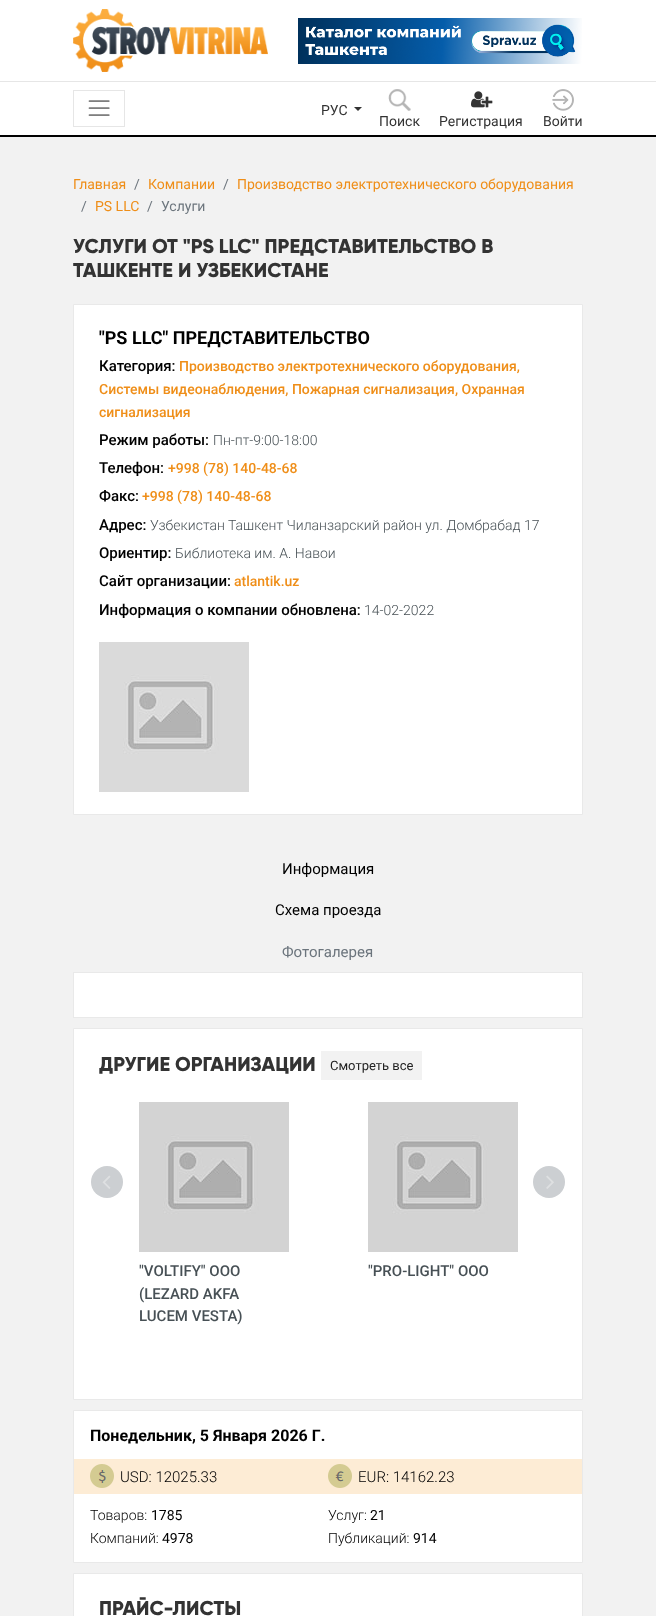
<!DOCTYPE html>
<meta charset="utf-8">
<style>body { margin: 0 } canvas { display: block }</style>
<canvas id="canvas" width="656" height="1616"></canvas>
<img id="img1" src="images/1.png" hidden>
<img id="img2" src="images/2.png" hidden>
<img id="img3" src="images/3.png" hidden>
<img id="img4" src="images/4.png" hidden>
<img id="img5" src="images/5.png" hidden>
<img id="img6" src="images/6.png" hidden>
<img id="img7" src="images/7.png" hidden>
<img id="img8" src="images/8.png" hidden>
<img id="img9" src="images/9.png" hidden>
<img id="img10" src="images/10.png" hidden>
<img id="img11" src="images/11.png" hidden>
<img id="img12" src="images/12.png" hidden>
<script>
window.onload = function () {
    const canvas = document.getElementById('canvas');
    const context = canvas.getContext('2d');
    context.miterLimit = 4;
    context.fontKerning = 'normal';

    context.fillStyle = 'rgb(242, 242, 242)';
    context.fillRect(0, 0, 656, 1616);
    context.fillStyle = 'rgb(255, 255, 255)';
    context.fillRect(0, 0, 656, 135);
    context.fillStyle = 'rgb(230, 230, 230)';
    context.fillRect(0, 81, 656, 1);
    context.fillStyle = 'rgb(0, 0, 0)';
    context.fillRect(0, 135, 656, 2);
    context.strokeStyle = 'rgb(230, 230, 230)';
    context.strokeRect(73.5, 90.5, 51, 36);
    context.drawImage(document.getElementById('img1'), 88, 100, 22, 16);
    context.drawImage(document.getElementById('img2'), 73, 9, 195, 63);
    context.drawImage(document.getElementById('img3'), 298, 18, 284, 46);
    context.fillStyle = 'rgb(51, 51, 51)';
    context.beginPath();
    context.moveTo(354, 107);
    context.lineTo(362, 107);
    context.lineTo(358, 111);
    context.closePath();
    context.fill();
    context.drawImage(document.getElementById('img4'), 388, 89, 23, 22);
    context.drawImage(document.getElementById('img5'), 471, 91, 22, 17);
    context.drawImage(document.getElementById('img6'), 552, 89, 22, 22);
    context.fillStyle = 'rgb(255, 255, 255)';
    context.beginPath();
    context.rect(73.5, 304.5, 509, 510);
    context.fill();
    context.strokeStyle = 'rgb(233, 233, 233)';
    context.stroke();
    context.drawImage(document.getElementById('img7'), 99, 642, 150, 150);
    context.fillStyle = 'rgb(233, 233, 233)';
    context.fillRect(73, 972, 510, 1);
    context.fillStyle = 'rgb(255, 255, 255)';
    context.fillRect(74, 973, 508, 44);
    context.fillStyle = 'rgb(233, 233, 233)';
    context.fillRect(582, 973, 1, 45);
    context.fillRect(73, 1017, 510, 1);
    context.fillRect(73, 973, 1, 45);
    context.fillStyle = 'rgb(255, 255, 255)';
    context.beginPath();
    context.rect(73.5, 1028.5, 509, 371);
    context.fill();
    context.stroke();
    context.fillStyle = 'rgb(242, 242, 242)';
    context.fillRect(321, 1051, 101, 29);
    context.fillStyle = 'rgb(204, 207, 210)';
    context.beginPath();
    context.arc(107, 1182, 16, 0, 2 * Math.PI);
    context.fill();
    context.drawImage(document.getElementById('img8'), 102, 1175, 9, 14);
    context.beginPath();
    context.arc(549, 1182, 16, 0, 2 * Math.PI);
    context.fill();
    context.drawImage(document.getElementById('img9'), 546, 1175, 8, 14);
    context.drawImage(document.getElementById('img10'), 139, 1102, 150, 150);
    context.drawImage(document.getElementById('img10'), 368, 1102, 150, 150);
    context.fillStyle = 'rgb(255, 255, 255)';
    context.beginPath();
    context.rect(73.5, 1410.5, 509, 152);
    context.fill();
    context.stroke();
    context.fillStyle = 'rgb(253, 236, 213)';
    context.fillRect(74, 1459, 508, 35);
    context.drawImage(document.getElementById('img11'), 90, 1464, 24, 24);
    context.drawImage(document.getElementById('img12'), 328, 1464, 24, 24);
    context.fillStyle = 'rgb(255, 255, 255)';
    context.beginPath();
    context.rect(73.5, 1573.5, 509, 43);
    context.fill();
    context.stroke();
    context.font = '14px Roboto';
    context.fillStyle = 'rgb(51, 51, 51)';
    context.fillText('РУС', 321, 115);
    context.fillText('Поиск', 379, 126);
    context.fillText('Регистрация', 439, 126);
    context.fillText('Войти', 543, 126);
    context.fillStyle = 'rgb(239, 142, 24)';
    context.fillText('Главная', 73, 189);
    context.fillStyle = 'rgb(108, 117, 125)';
    context.fillText('/', 134, 189);
    context.fillStyle = 'rgb(239, 142, 24)';
    context.fillText('Компании', 148, 189);
    context.fillStyle = 'rgb(108, 117, 125)';
    context.fillText('/', 223, 189);
    context.fillStyle = 'rgb(239, 142, 24)';
    context.fillText('Производство электротехнического оборудования', 237, 189);
    context.fillStyle = 'rgb(108, 117, 125)';
    context.fillText('/', 81, 211);
    context.fillStyle = 'rgb(239, 142, 24)';
    context.fillText('PS LLC', 95, 211);
    context.fillStyle = 'rgb(108, 117, 125)';
    context.fillText('/', 147, 211);
    context.fillText('Услуги', 161, 211);
    context.font = '800 20px Gilroy';
    context.fillStyle = 'rgb(51, 51, 51)';
    context.fillText('УСЛУГИ ОТ "PS LLC" ПРЕДСТАВИТЕЛЬСТВО В', 73, 253);
    context.fillText('ТАШКЕНТЕ И УЗБЕКИСТАНЕ', 73, 277);
    context.font = 'bold 18px Roboto';
    context.fillStyle = 'rgb(0, 0, 0)';
    context.fillText('"PS LLC" ПРЕДСТАВИТЕЛЬСТВО', 99, 344);
    context.font = '500 15px Roboto';
    context.fillText('Категория:', 99, 371);
    context.font = '500 14px Roboto';
    context.fillStyle = 'rgb(239, 142, 24)';
    context.fillText('Производство электротехнического оборудования,', 179, 371);
    context.fillText('Системы видеонаблюдения, Пожарная сигнализация, Охранная', 99, 394);
    context.fillText('сигнализация', 99, 417);
    context.font = '500 15px Roboto';
    context.fillStyle = 'rgb(0, 0, 0)';
    context.fillText('Режим работы:', 99, 445);
    context.font = '300 14px Roboto';
    context.fillStyle = 'rgb(71, 80, 85)';
    context.fillText('Пн-пт-9:00-18:00', 213, 445);
    context.font = '500 15px Roboto';
    context.fillStyle = 'rgb(0, 0, 0)';
    context.fillText('Телефон:', 99, 473);
    context.font = '500 14px Roboto';
    context.fillStyle = 'rgb(239, 142, 24)';
    context.fillText('+998 (78) 140-48-68', 168, 473);
    context.font = '500 15px Roboto';
    context.fillStyle = 'rgb(0, 0, 0)';
    context.fillText('Факс:', 99, 501);
    context.font = '500 14px Roboto';
    context.fillStyle = 'rgb(239, 142, 24)';
    context.fillText('+998 (78) 140-48-68', 142, 501);
    context.font = '500 15px Roboto';
    context.fillStyle = 'rgb(0, 0, 0)';
    context.fillText('Адрес:', 99, 530);
    context.font = '300 14px Roboto';
    context.fillStyle = 'rgb(71, 80, 85)';
    context.fillText('Узбекистан Ташкент Чиланзарский район ул. Домбрабад 17', 150, 530);
    context.font = '500 15px Roboto';
    context.fillStyle = 'rgb(0, 0, 0)';
    context.fillText('Ориентир:', 99, 558);
    context.font = '300 14px Roboto';
    context.fillStyle = 'rgb(71, 80, 85)';
    context.fillText('Библиотека им. А. Навои', 175, 558);
    context.font = '500 15px Roboto';
    context.fillStyle = 'rgb(0, 0, 0)';
    context.fillText('Сайт организации:', 99, 586);
    context.font = '500 14px Roboto';
    context.fillStyle = 'rgb(239, 142, 24)';
    context.fillText('atlantik.uz', 234, 586);
    context.font = '500 15px Roboto';
    context.fillStyle = 'rgb(0, 0, 0)';
    context.fillText('Информация о компании обновлена:', 99, 615);
    context.font = '300 14px Roboto';
    context.fillStyle = 'rgb(71, 80, 85)';
    context.fillText('14-02-2022', 364, 615);
    context.font = '15px Roboto';
    context.fillStyle = 'rgb(0, 0, 0)';
    context.fillText('Информация', 282, 874);
    context.fillText('Схема проезда', 275, 915);
    context.fillStyle = 'rgb(108, 117, 125)';
    context.fillText('Фотогалерея', 282, 957);
    context.font = '800 20px Gilroy';
    context.fillStyle = 'rgb(51, 51, 51)';
    context.fillText('ДРУГИЕ ОРГАНИЗАЦИИ', 99, 1071);
    context.font = '13px Roboto';
    context.fillStyle = 'rgb(34, 34, 34)';
    context.fillText('Смотреть все', 330, 1070);
    context.font = '500 15px Roboto';
    context.fillStyle = 'rgb(71, 80, 85)';
    context.fillText('"VOLTIFY" ООО', 139, 1276);
    context.fillText('(LEZARD AKFA', 139, 1299);
    context.fillText('LUCEM VESTA)', 139, 1321);
    context.fillText('"PRO-LIGHT" ООО', 368, 1276);
    context.font = 'bold 16px Roboto';
    context.fillStyle = 'rgb(0, 0, 0)';
    context.fillText('Понедельник, 5 Января 2026 Г.', 90, 1441);
    context.font = '300 15px Roboto';
    context.fillText('USD: 12025.33', 120, 1482);
    context.fillText('EUR: 14162.23', 358, 1482);
    context.font = '300 14px Roboto';
    context.fillText('Товаров:', 90, 1520);
    context.font = '14px Roboto';
    context.fillText('1785', 151, 1520);
    context.font = '300 14px Roboto';
    context.fillText('Компаний:', 90, 1543);
    context.font = '14px Roboto';
    context.fillText('4978', 162, 1543);
    context.font = '300 14px Roboto';
    context.fillText('Услуг:', 328, 1520);
    context.font = '14px Roboto';
    context.fillText('21', 370, 1520);
    context.font = '300 14px Roboto';
    context.fillText('Публикаций:', 328, 1543);
    context.font = '14px Roboto';
    context.fillText('914', 413, 1543);
    context.font = '800 20px Gilroy';
    context.fillStyle = 'rgb(51, 51, 51)';
    context.fillText('ПРАЙС-ЛИСТЫ', 99, 1615);
};
</script>
